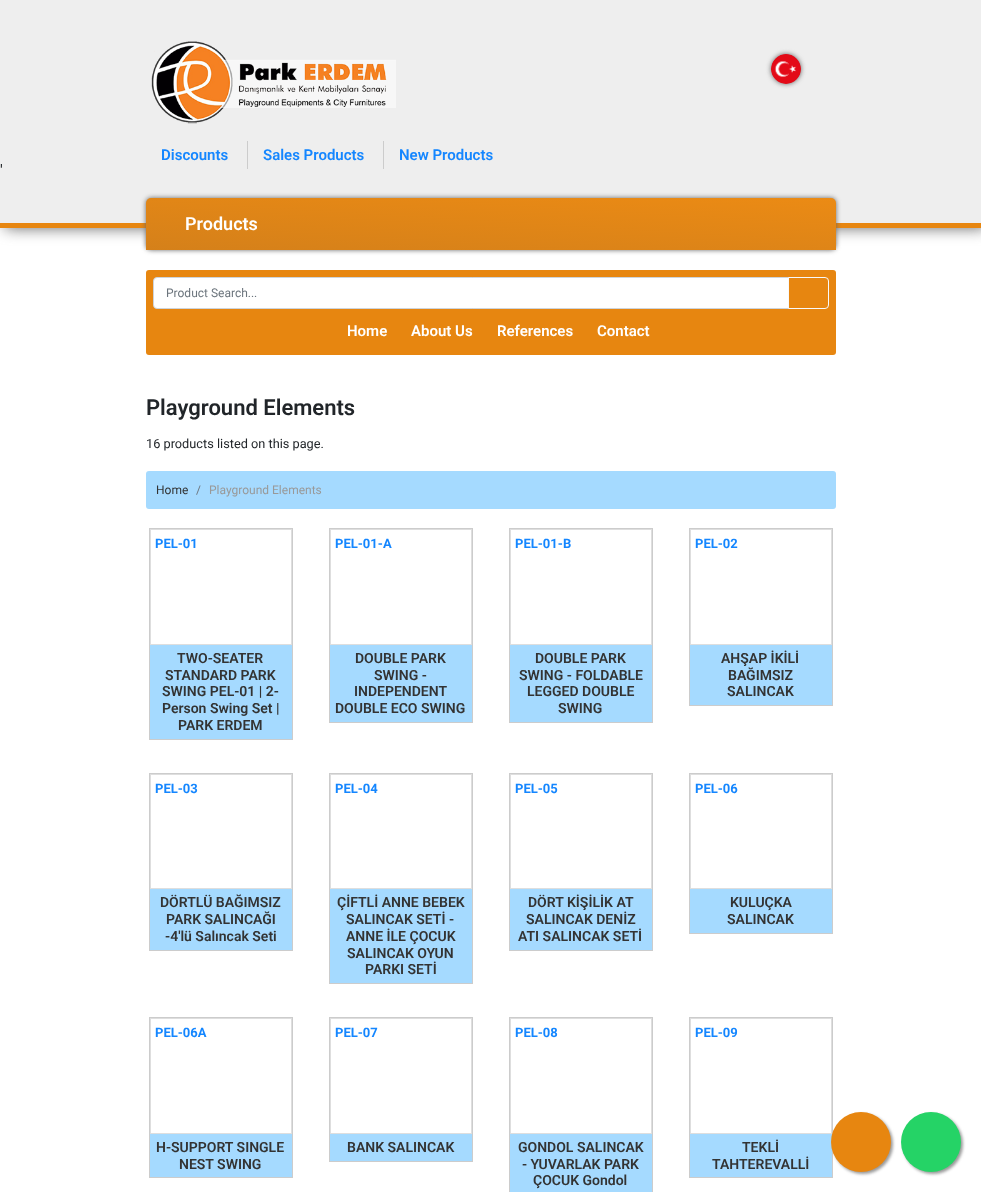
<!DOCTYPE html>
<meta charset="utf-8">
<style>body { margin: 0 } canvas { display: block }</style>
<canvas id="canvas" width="981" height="1192"></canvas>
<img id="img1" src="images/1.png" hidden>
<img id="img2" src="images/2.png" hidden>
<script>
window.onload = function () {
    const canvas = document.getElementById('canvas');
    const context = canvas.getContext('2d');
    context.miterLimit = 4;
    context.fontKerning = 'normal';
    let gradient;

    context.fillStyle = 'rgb(255, 255, 255)';
    context.fillRect(0, 0, 981, 1192);
    context.fillStyle = 'rgb(102, 102, 102)';
    context.filter = 'blur(7.5px)';
    context.beginPath();
    context.rect(5, 0, 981, 228);
    context.fill();
    context.filter = 'none';
    context.fillStyle = 'rgb(238, 238, 238)';
    context.fillRect(0, 0, 981, 223);
    context.fillStyle = 'rgb(231, 134, 16)';
    context.fillRect(0, 223, 981, 5);
    context.drawImage(document.getElementById('img1'), 151, 41, 245, 83);
    context.fillStyle = 'rgb(102, 102, 102)';
    context.filter = 'blur(2.5px)';
    context.beginPath();
    context.roundRect(771, 54, 30, 30, 15);
    context.fill();
    context.filter = 'none';
    context.drawImage(document.getElementById('img2'), 771, 54, 30, 30);
    context.fillStyle = 'rgb(204, 204, 204)';
    context.fillRect(247, 141, 1, 28);
    context.fillRect(383, 141, 1, 28);
    context.fillStyle = 'rgb(102, 102, 102)';
    context.filter = 'blur(2.5px)';
    context.beginPath();
    context.roundRect(146, 198, 690, 52, 5);
    context.fill();
    context.filter = 'none';
    gradient = context.createLinearGradient(494, 174, 488, 274);
    gradient.addColorStop(0, 'rgb(236, 139, 20)');
    gradient.addColorStop(1, 'rgb(212, 128, 26)');
    context.fillStyle = gradient;
    context.beginPath();
    context.roundRect(146, 198, 690, 52, [5, 5, 0, 0]);
    context.fill();
    context.fillStyle = 'rgb(231, 134, 16)';
    context.beginPath();
    context.roundRect(146, 270, 690, 85, 3);
    context.fill();
    context.fillStyle = 'rgb(255, 255, 255)';
    context.beginPath();
    context.roundRect(153.5, 277.5, 635, 31, [3.5, 0, 0, 3.5]);
    context.fill();
    context.strokeStyle = 'rgb(206, 212, 218)';
    context.stroke();
    context.fillStyle = 'rgb(231, 134, 16)';
    context.beginPath();
    context.roundRect(788.5, 277.5, 40, 31, [0, 3.5, 3.5, 0]);
    context.fill();
    context.strokeStyle = 'rgb(248, 249, 250)';
    context.stroke();
    context.fillStyle = 'rgb(165, 218, 255)';
    context.beginPath();
    context.roundRect(146, 471, 690, 38, 3);
    context.fill();
    context.strokeStyle = 'rgb(204, 204, 204)';
    context.strokeRect(149.5, 528.5, 143, 211);
    context.strokeStyle = 'rgb(222, 222, 222)';
    context.strokeRect(150.5, 529.5, 141, 115);
    context.fillRect(150, 645, 142, 94);
    context.strokeStyle = 'rgb(204, 204, 204)';
    context.strokeRect(329.5, 528.5, 143, 194);
    context.strokeStyle = 'rgb(222, 222, 222)';
    context.strokeRect(330.5, 529.5, 141, 115);
    context.fillRect(330, 645, 142, 77);
    context.strokeStyle = 'rgb(204, 204, 204)';
    context.strokeRect(509.5, 528.5, 143, 194);
    context.strokeStyle = 'rgb(222, 222, 222)';
    context.strokeRect(510.5, 529.5, 141, 115);
    context.fillRect(510, 645, 142, 77);
    context.strokeStyle = 'rgb(204, 204, 204)';
    context.strokeRect(689.5, 528.5, 143, 177);
    context.strokeStyle = 'rgb(222, 222, 222)';
    context.strokeRect(690.5, 529.5, 141, 115);
    context.fillRect(690, 645, 142, 60);
    context.strokeStyle = 'rgb(204, 204, 204)';
    context.strokeRect(149.5, 773.5, 143, 177);
    context.strokeStyle = 'rgb(222, 222, 222)';
    context.strokeRect(150.5, 774.5, 141, 114);
    context.fillRect(150, 889, 142, 61);
    context.strokeStyle = 'rgb(204, 204, 204)';
    context.strokeRect(329.5, 773.5, 143, 210);
    context.strokeStyle = 'rgb(222, 222, 222)';
    context.strokeRect(330.5, 774.5, 141, 114);
    context.fillRect(330, 889, 142, 94);
    context.strokeStyle = 'rgb(204, 204, 204)';
    context.strokeRect(509.5, 773.5, 143, 177);
    context.strokeStyle = 'rgb(222, 222, 222)';
    context.strokeRect(510.5, 774.5, 141, 114);
    context.fillRect(510, 889, 142, 61);
    context.strokeStyle = 'rgb(204, 204, 204)';
    context.strokeRect(689.5, 773.5, 143, 160);
    context.strokeStyle = 'rgb(222, 222, 222)';
    context.strokeRect(690.5, 774.5, 141, 114);
    context.fillRect(690, 889, 142, 44);
    context.strokeStyle = 'rgb(204, 204, 204)';
    context.strokeRect(149.5, 1017.5, 143, 160);
    context.strokeStyle = 'rgb(222, 222, 222)';
    context.strokeRect(150.5, 1018.5, 141, 115);
    context.fillRect(150, 1134, 142, 43);
    context.strokeStyle = 'rgb(204, 204, 204)';
    context.strokeRect(329.5, 1017.5, 143, 144);
    context.strokeStyle = 'rgb(222, 222, 222)';
    context.strokeRect(330.5, 1018.5, 141, 115);
    context.fillRect(330, 1134, 142, 27);
    context.strokeStyle = 'rgb(204, 204, 204)';
    context.strokeRect(509.5, 1017.5, 143, 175);
    context.strokeStyle = 'rgb(222, 222, 222)';
    context.strokeRect(510.5, 1018.5, 141, 115);
    context.fillRect(510, 1134, 142, 58);
    context.strokeStyle = 'rgb(204, 204, 204)';
    context.strokeRect(689.5, 1017.5, 143, 160);
    context.strokeStyle = 'rgb(222, 222, 222)';
    context.strokeRect(690.5, 1018.5, 141, 115);
    context.fillRect(690, 1134, 142, 43);
    context.fillStyle = 'rgb(153, 153, 153)';
    context.filter = 'blur(1.5px)';
    context.beginPath();
    context.roundRect(833, 1114, 60, 60, 30);
    context.fill();
    context.filter = 'none';
    context.fillStyle = 'rgb(231, 134, 16)';
    context.beginPath();
    context.arc(861, 1142, 30, 0, 2 * Math.PI);
    context.fill();
    context.fillStyle = 'rgb(153, 153, 153)';
    context.filter = 'blur(1.5px)';
    context.beginPath();
    context.roundRect(903, 1114, 60, 60, 30);
    context.fill();
    context.filter = 'none';
    context.fillStyle = 'rgb(37, 211, 102)';
    context.beginPath();
    context.arc(931, 1142, 30, 0, 2 * Math.PI);
    context.fill();
    context.font = '600 15px Roboto';
    context.fillStyle = 'rgb(20, 134, 255)';
    context.fillText('Discounts', 161, 160);
    context.fillText('Sales Products', 263, 160);
    context.fillText('New Products', 399, 160);
    context.font = '16px Roboto';
    context.fillStyle = 'rgb(33, 37, 41)';
    context.fillText('\'', 0, 176);
    context.font = '600 18px Roboto';
    context.fillStyle = 'rgb(255, 255, 255)';
    context.fillText('Products', 185, 230);
    context.font = '12px Roboto';
    context.fillStyle = 'rgb(108, 117, 125)';
    context.fillText('Product Search...', 166, 297);
    context.font = '600 15px Roboto';
    context.fillStyle = 'rgb(255, 255, 255)';
    context.fillText('Home', 347, 336);
    context.fillText('About Us', 411, 336);
    context.fillText('References', 497, 336);
    context.fillText('Contact', 597, 336);
    context.font = '600 22px Roboto';
    context.fillStyle = 'rgb(33, 37, 41)';
    context.fillText('Playground Elements', 146, 415);
    context.font = '12.75px Roboto';
    context.fillText('16 products listed on this page.', 146, 448);
    context.font = '12px Roboto';
    context.fillStyle = 'rgb(51, 51, 51)';
    context.fillText('Home', 156, 494);
    context.fillStyle = 'rgb(108, 117, 125)';
    context.fillText('/', 196, 494);
    context.fillStyle = 'rgb(153, 153, 153)';
    context.fillText('Playground Elements', 209, 494);
    context.font = 'bold 13px Roboto';
    context.fillStyle = 'rgb(20, 134, 255)';
    context.fillText('PEL-01', 155, 548);
    context.font = '600 14px Roboto';
    context.fillStyle = 'rgb(51, 51, 51)';
    context.fillText('TWO-SEATER', 177, 663);
    context.fillText('STANDARD PARK', 165, 680);
    context.fillText('SWING PEL-01 | 2-', 162, 696);
    context.fillText('Person Swing Set |', 162, 713);
    context.fillText('PARK ERDEM', 178, 730);
    context.font = 'bold 13px Roboto';
    context.fillStyle = 'rgb(20, 134, 255)';
    context.fillText('PEL-01-A', 335, 548);
    context.font = '600 14px Roboto';
    context.fillStyle = 'rgb(51, 51, 51)';
    context.fillText('DOUBLE PARK', 355, 663);
    context.fillText('SWING -', 374, 680);
    context.fillText('INDEPENDENT', 354, 696);
    context.fillText('DOUBLE ECO SWING', 335, 713);
    context.font = 'bold 13px Roboto';
    context.fillStyle = 'rgb(20, 134, 255)';
    context.fillText('PEL-01-B', 515, 548);
    context.font = '600 14px Roboto';
    context.fillStyle = 'rgb(51, 51, 51)';
    context.fillText('DOUBLE PARK', 535, 663);
    context.fillText('SWING - FOLDABLE', 519, 680);
    context.fillText('LEGGED DOUBLE', 527, 696);
    context.fillText('SWING', 558, 713);
    context.font = 'bold 13px Roboto';
    context.fillStyle = 'rgb(20, 134, 255)';
    context.fillText('PEL-02', 695, 548);
    context.font = '600 14px Roboto';
    context.fillStyle = 'rgb(51, 51, 51)';
    context.fillText('AHŞAP İKİLİ', 721, 663);
    context.fillText('BAĞIMSIZ', 728, 680);
    context.fillText('SALINCAK', 727, 696);
    context.font = 'bold 13px Roboto';
    context.fillStyle = 'rgb(20, 134, 255)';
    context.fillText('PEL-03', 155, 793);
    context.font = '600 14px Roboto';
    context.fillStyle = 'rgb(51, 51, 51)';
    context.fillText('DÖRTLÜ BAĞIMSIZ', 160, 907);
    context.fillText('PARK SALINCAĞI', 166, 924);
    context.fillText('-4\'lü Salıncak Seti', 165, 941);
    context.font = 'bold 13px Roboto';
    context.fillStyle = 'rgb(20, 134, 255)';
    context.fillText('PEL-04', 335, 793);
    context.font = '600 14px Roboto';
    context.fillStyle = 'rgb(51, 51, 51)';
    context.fillText('ÇİFTLİ ANNE BEBEK', 337, 907);
    context.fillText('SALINCAK SETİ -', 346, 924);
    context.fillText('ANNE İLE ÇOCUK', 346, 941);
    context.fillText('SALINCAK OYUN', 347, 958);
    context.fillText('PARKI SETİ', 365, 974);
    context.font = 'bold 13px Roboto';
    context.fillStyle = 'rgb(20, 134, 255)';
    context.fillText('PEL-05', 515, 793);
    context.font = '600 14px Roboto';
    context.fillStyle = 'rgb(51, 51, 51)';
    context.fillText('DÖRT KİŞİLİK AT', 528, 907);
    context.fillText('SALINCAK DENİZ', 526, 924);
    context.fillText('ATI SALINCAK SETİ', 518, 941);
    context.font = 'bold 13px Roboto';
    context.fillStyle = 'rgb(20, 134, 255)';
    context.fillText('PEL-06', 695, 793);
    context.font = '600 14px Roboto';
    context.fillStyle = 'rgb(51, 51, 51)';
    context.fillText('KULUÇKA', 730, 907);
    context.fillText('SALINCAK', 727, 924);
    context.font = 'bold 13px Roboto';
    context.fillStyle = 'rgb(20, 134, 255)';
    context.fillText('PEL-06A', 155, 1037);
    context.font = '600 14px Roboto';
    context.fillStyle = 'rgb(51, 51, 51)';
    context.fillText('H-SUPPORT SINGLE', 156, 1152);
    context.fillText('NEST SWING', 179, 1169);
    context.font = 'bold 13px Roboto';
    context.fillStyle = 'rgb(20, 134, 255)';
    context.fillText('PEL-07', 335, 1037);
    context.font = '600 14px Roboto';
    context.fillStyle = 'rgb(51, 51, 51)';
    context.fillText('BANK SALINCAK', 347, 1152);
    context.font = 'bold 13px Roboto';
    context.fillStyle = 'rgb(20, 134, 255)';
    context.fillText('PEL-08', 515, 1037);
    context.font = '600 14px Roboto';
    context.fillStyle = 'rgb(51, 51, 51)';
    context.fillText('GONDOL SALINCAK', 518, 1152);
    context.fillText('- YUVARLAK PARK', 522, 1169);
    context.fillText('ÇOCUK Gondol', 533, 1185);
    context.font = 'bold 13px Roboto';
    context.fillStyle = 'rgb(20, 134, 255)';
    context.fillText('PEL-09', 695, 1037);
    context.font = '600 14px Roboto';
    context.fillStyle = 'rgb(51, 51, 51)';
    context.fillText('TEKLİ', 742, 1152);
    context.fillText('TAHTEREVALLİ', 712, 1169);
};
</script>
